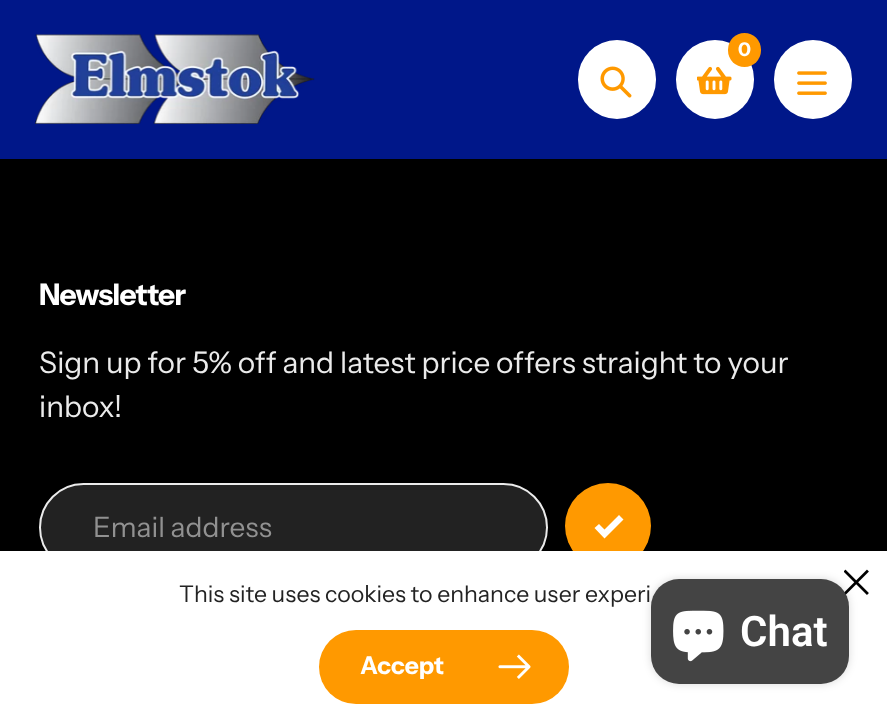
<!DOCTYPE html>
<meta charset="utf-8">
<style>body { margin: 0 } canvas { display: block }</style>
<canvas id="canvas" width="887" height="720"></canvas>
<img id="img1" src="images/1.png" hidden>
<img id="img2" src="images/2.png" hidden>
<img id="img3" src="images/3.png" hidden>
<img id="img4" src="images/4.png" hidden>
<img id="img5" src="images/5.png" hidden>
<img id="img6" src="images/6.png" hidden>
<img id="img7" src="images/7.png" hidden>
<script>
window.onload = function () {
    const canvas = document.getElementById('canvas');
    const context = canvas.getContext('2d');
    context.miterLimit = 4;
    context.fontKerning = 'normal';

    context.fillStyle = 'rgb(0, 0, 0)';
    context.fillRect(0, 0, 887, 720);
    context.fillStyle = 'rgb(0, 23, 137)';
    context.fillRect(0, 0, 887, 159);
    context.drawImage(document.getElementById('img1'), 35, 34, 280, 90);
    context.fillStyle = 'rgb(255, 255, 255)';
    context.beginPath();
    context.roundRect(578, 40, 78, 79, 39);
    context.fill();
    context.drawImage(document.getElementById('img2'), 600, 66, 32, 32);
    context.beginPath();
    context.roundRect(676, 40, 78, 79, 39);
    context.fill();
    context.drawImage(document.getElementById('img3'), 697, 66, 35, 29);
    context.fillStyle = 'rgb(255, 153, 0)';
    context.beginPath();
    context.roundRect(728, 33, 33, 34, 16.5);
    context.fill();
    context.fillStyle = 'rgb(255, 255, 255)';
    context.beginPath();
    context.roundRect(774, 40, 78, 79, 39);
    context.fill();
    context.drawImage(document.getElementById('img4'), 797, 71, 30, 24);
    context.fillStyle = 'rgb(34, 34, 34)';
    context.beginPath();
    context.roundRect(40, 484, 507, 87, 43.5);
    context.fill();
    context.strokeStyle = 'rgb(235, 235, 235)';
    context.lineWidth = 2;
    context.stroke();
    context.fillStyle = 'rgb(255, 153, 0)';
    context.beginPath();
    context.arc(608, 526, 43, 0, 2 * Math.PI);
    context.fill();
    context.fillStyle = 'rgb(255, 255, 255)';
    context.beginPath();
    context.moveTo(604.5, 538.5);
    context.lineTo(594.5, 528);
    context.lineTo(599, 524);
    context.lineTo(604.5, 529.5);
    context.lineTo(619, 515);
    context.lineTo(623.5, 519.5);
    context.closePath();
    context.fill();
    context.fillRect(0, 551, 887, 169);
    context.drawImage(document.getElementById('img5'), 844, 569, 25, 26);
    context.fillStyle = 'rgb(255, 153, 0)';
    context.beginPath();
    context.roundRect(319, 630, 250, 74, 37);
    context.fill();
    context.drawImage(document.getElementById('img6'), 498, 654, 33, 25);
    context.fillStyle = 'rgba(0, 0, 0, 0.15)';
    context.filter = 'blur(4.5px)';
    context.beginPath();
    context.roundRect(651, 579, 198, 105, 28);
    context.fill();
    context.filter = 'none';
    context.fillStyle = 'rgb(68, 68, 68)';
    context.beginPath();
    context.roundRect(651, 579, 198, 105, 28);
    context.fill();
    context.drawImage(document.getElementById('img7'), 673, 610, 51, 52);
    context.font = 'bold 19px Instrument Sans';
    context.fillStyle = 'rgb(255, 255, 255)';
    context.fillText('0', 738, 56);
    context.letterSpacing = '-0.9px';
    context.font = 'bold 29.75px Instrument Sans';
    context.fillText('Newsletter', 39, 305);
    context.letterSpacing = '0px';
    context.font = '29.75px Instrument Sans';
    context.fillStyle = 'rgb(235, 235, 235)';
    context.fillText('Sign up for 5% off and latest price offers straight to your', 39, 373);
    context.fillText('inbox!', 39, 417);
    context.font = '28px Instrument Sans';
    context.fillStyle = 'rgb(145, 145, 145)';
    context.fillText('Email address', 93, 537);
    context.font = '23.1px Instrument Sans';
    context.fillStyle = 'rgb(35, 35, 35)';
    context.fillText('This site uses cookies to enhance user experi', 179, 602);
    context.font = 'bold 24.5px Instrument Sans';
    context.fillStyle = 'rgb(255, 255, 255)';
    context.fillText('Accept', 360, 674);
    context.font = '600 42px Roboto';
    context.fillText('Chat', 740, 646);
};
</script>
